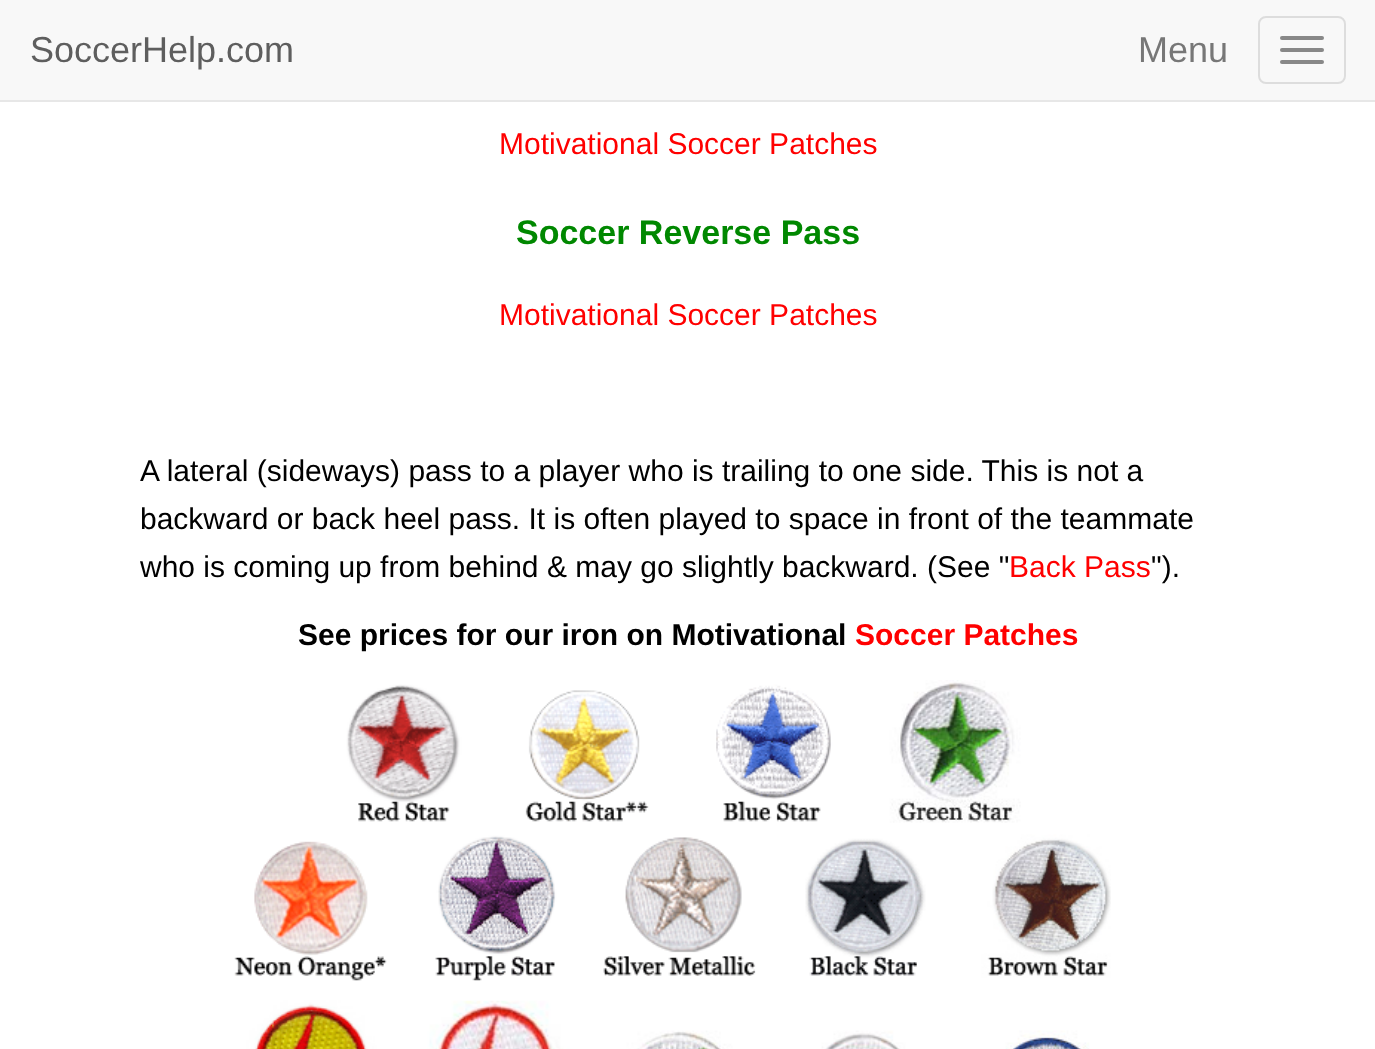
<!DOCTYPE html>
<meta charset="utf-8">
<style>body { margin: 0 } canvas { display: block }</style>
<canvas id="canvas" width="1375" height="1049"></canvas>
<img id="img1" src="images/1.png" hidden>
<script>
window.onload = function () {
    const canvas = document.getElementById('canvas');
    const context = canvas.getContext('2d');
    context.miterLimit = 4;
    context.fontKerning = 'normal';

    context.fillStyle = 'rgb(255, 255, 255)';
    context.fillRect(0, 0, 1375, 1049);
    context.fillStyle = 'rgb(248, 248, 248)';
    context.fillRect(0, 0, 1375, 100);
    context.fillStyle = 'rgb(231, 231, 231)';
    context.fillRect(0, 100, 1375, 2);
    context.beginPath();
    context.roundRect(1259, 17, 86, 66, 7);
    context.strokeStyle = 'rgb(221, 221, 221)';
    context.lineWidth = 2;
    context.stroke();
    context.fillStyle = 'rgb(136, 136, 136)';
    context.beginPath();
    context.roundRect(1280, 36, 44, 4, 2);
    context.fill();
    context.beginPath();
    context.roundRect(1280, 48, 44, 4, 2);
    context.fill();
    context.beginPath();
    context.roundRect(1280, 60, 44, 4, 2);
    context.fill();
    context.drawImage(document.getElementById('img1'), 234, 680, 877, 369);
    context.font = '36px Liberation Sans';
    context.fillStyle = 'rgb(94, 94, 94)';
    context.fillText('SoccerHelp.com', 30, 62);
    context.fillStyle = 'rgb(119, 119, 119)';
    context.fillText('Menu', 1138, 62);
    context.font = '30px Liberation Sans';
    context.fillStyle = 'rgb(255, 0, 0)';
    context.fillText('Motivational Soccer Patches', 499, 154);
    context.font = 'bold 34px Liberation Sans';
    context.fillStyle = 'rgb(0, 136, 0)';
    context.fillText('Soccer Reverse Pass', 516, 244);
    context.font = '30px Liberation Sans';
    context.fillStyle = 'rgb(255, 0, 0)';
    context.fillText('Motivational Soccer Patches', 499, 325);
    context.fillStyle = 'rgb(0, 0, 0)';
    context.fillText('A lateral (sideways) pass to a player who is trailing to one side. This is not a', 140, 481);
    context.fillText('backward or back heel pass. It is often played to space in front of the teammate', 140, 529);
    context.fillText('who is coming up from behind & may go slightly backward. (See "', 140, 577);
    context.fillStyle = 'rgb(255, 0, 0)';
    context.fillText('Back Pass', 1009, 577);
    context.fillStyle = 'rgb(0, 0, 0)';
    context.fillText('").', 1151, 577);
    context.font = 'bold 30px Liberation Sans';
    context.fillText('See prices for our iron on Motivational', 298, 645);
    context.fillStyle = 'rgb(255, 0, 0)';
    context.fillText('Soccer Patches', 855, 645);
};
</script>
